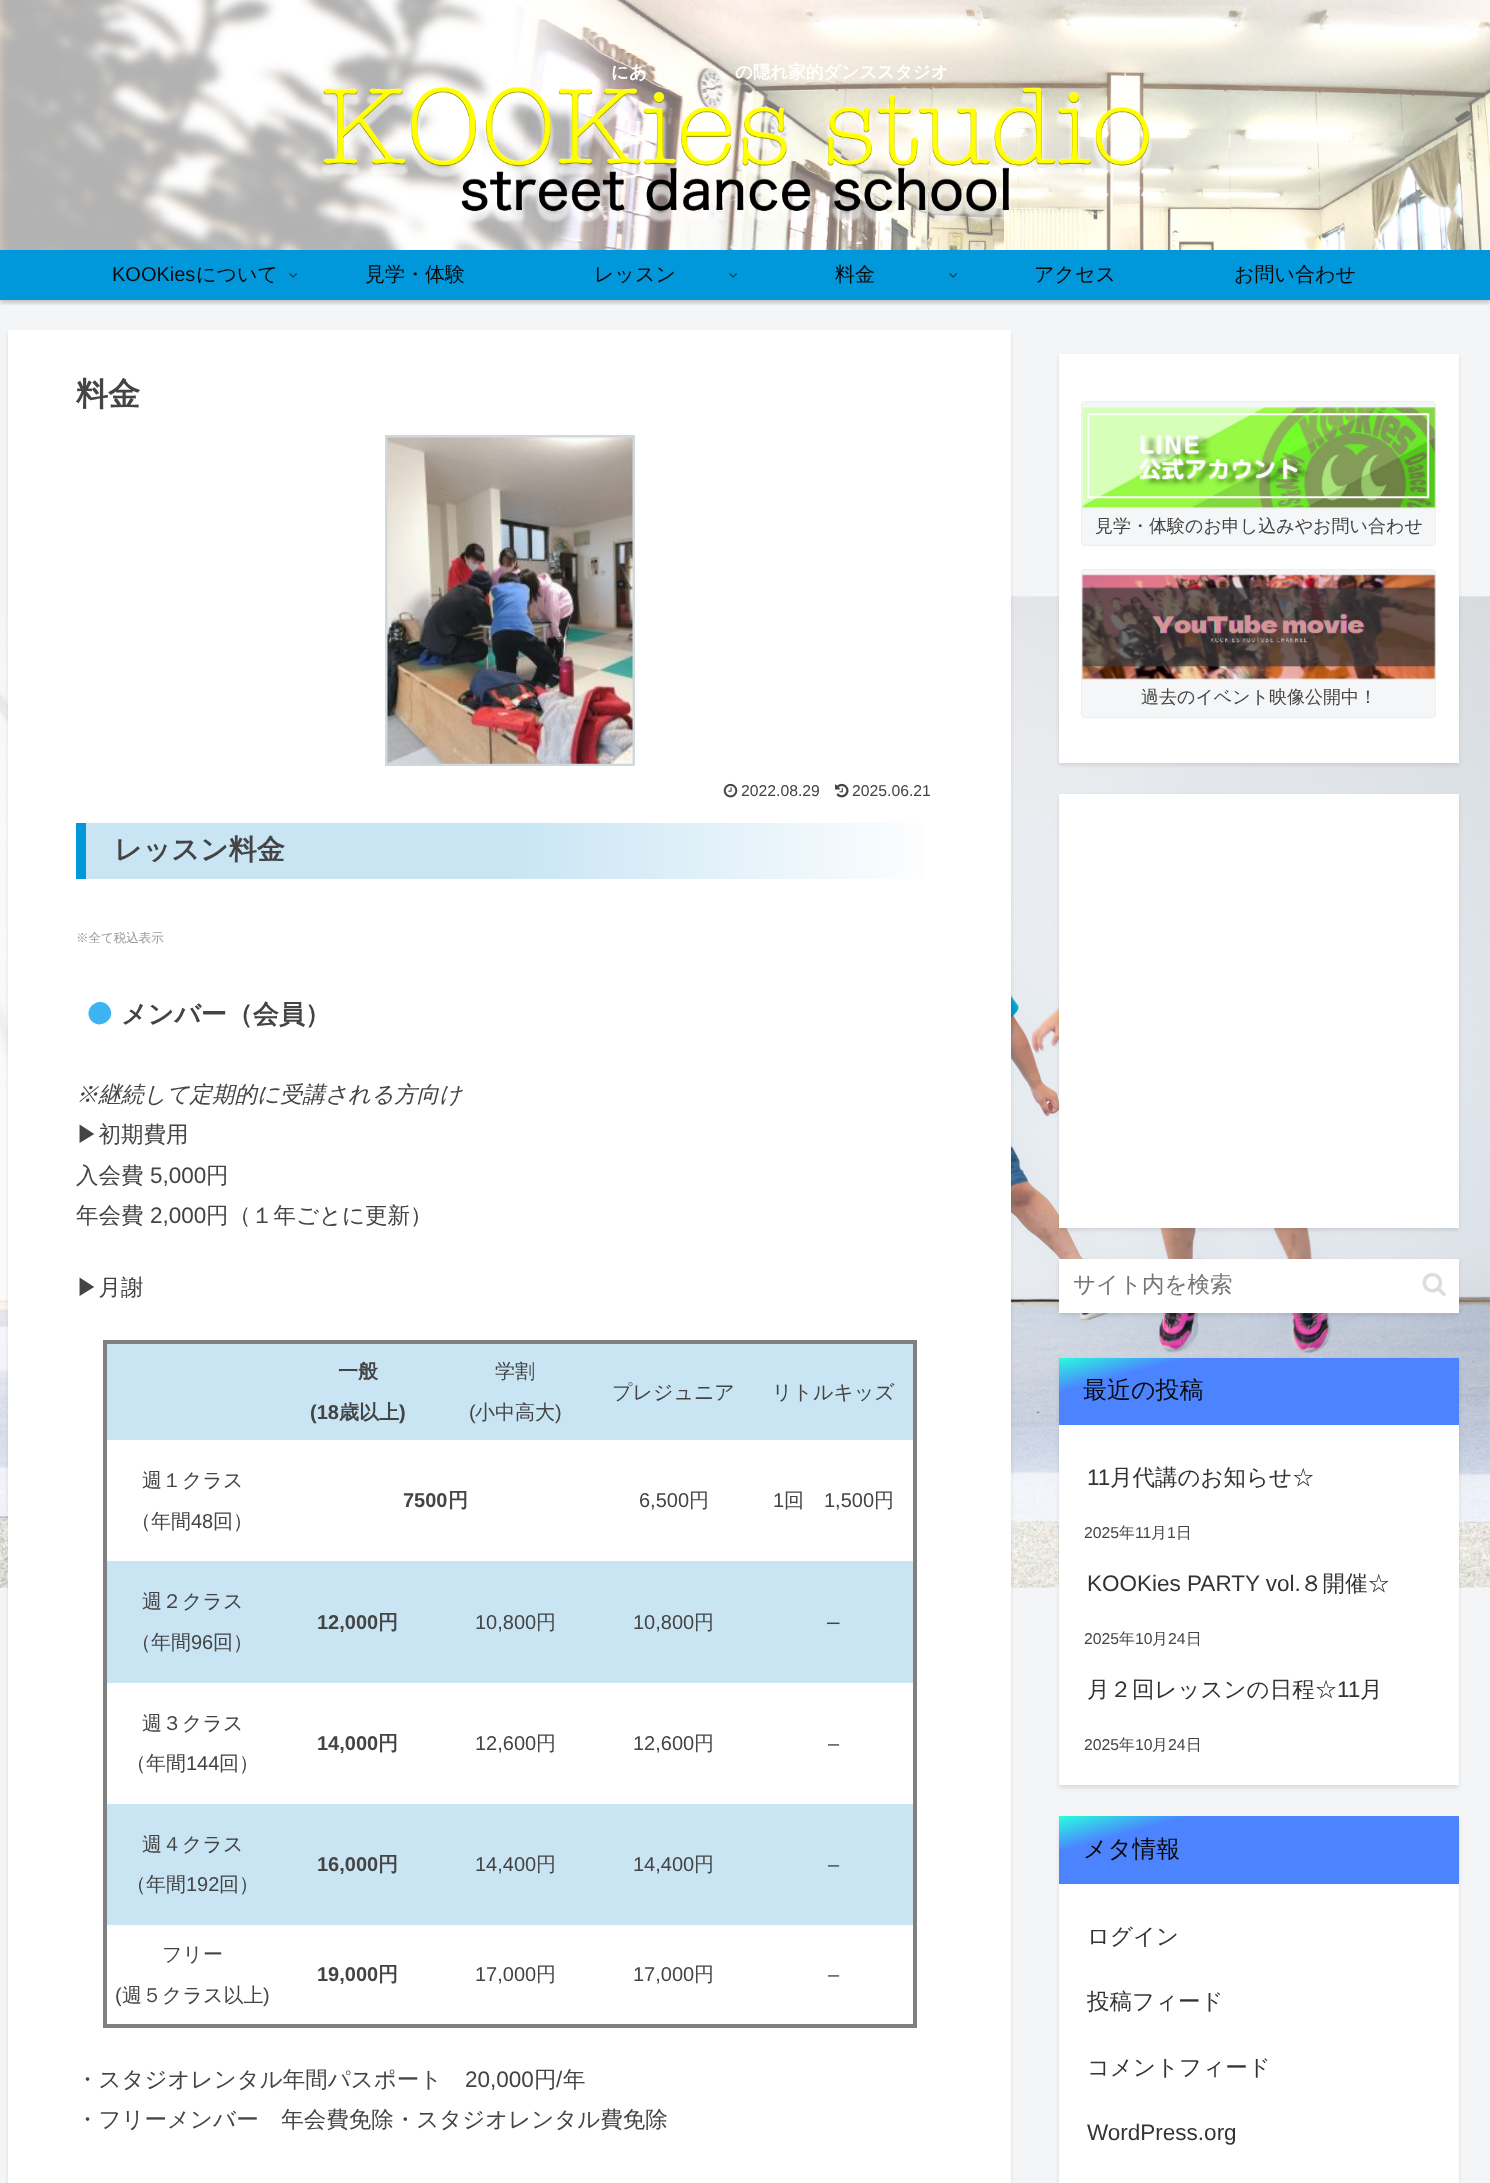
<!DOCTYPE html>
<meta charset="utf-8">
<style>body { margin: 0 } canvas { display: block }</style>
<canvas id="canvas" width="1490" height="2183"></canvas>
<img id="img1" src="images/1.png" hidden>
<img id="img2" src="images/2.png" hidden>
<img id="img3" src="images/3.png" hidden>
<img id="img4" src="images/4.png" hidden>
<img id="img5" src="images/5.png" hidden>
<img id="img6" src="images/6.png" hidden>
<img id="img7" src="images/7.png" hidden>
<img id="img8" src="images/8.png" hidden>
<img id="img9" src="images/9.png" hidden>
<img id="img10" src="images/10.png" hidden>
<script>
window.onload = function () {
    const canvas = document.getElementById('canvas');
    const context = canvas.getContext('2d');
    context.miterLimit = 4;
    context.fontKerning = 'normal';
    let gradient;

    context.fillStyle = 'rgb(244, 245, 247)';
    context.fillRect(0, 0, 1490, 2183);
    context.drawImage(document.getElementById('img1'), 0, 596, 1490, 992);
    context.fillStyle = 'rgba(0, 0, 0, 0.1)';
    context.filter = 'blur(2px)';
    context.beginPath();
    context.rect(0, 3, 1490, 300);
    context.fill();
    context.filter = 'none';
    context.fillStyle = 'rgb(0, 151, 219)';
    context.fillRect(0, 250, 1490, 50);
    context.drawImage(document.getElementById('img2'), 0, 0, 1490, 250);
    context.drawImage(document.getElementById('img3'), 320, 86, 832, 137);
    context.save();
    context.beginPath();
    context.rect(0, 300, 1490, 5);
    context.clip();
    context.fillStyle = 'rgba(0, 0, 0, 0.1)';
    context.filter = 'blur(2px)';
    context.beginPath();
    context.rect(0, 253, 1490, 50);
    context.fill();
    context.filter = 'none';
    context.restore();
    context.drawImage(document.getElementById('img4'), 289, 273, 8, 5);
    context.drawImage(document.getElementById('img4'), 729, 273, 8, 5);
    context.drawImage(document.getElementById('img4'), 949, 273, 8, 5);
    context.fillStyle = 'rgba(0, 0, 0, 0.1)';
    context.filter = 'blur(2px)';
    context.beginPath();
    context.rect(8, 333, 1003, 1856);
    context.fill();
    context.filter = 'none';
    context.fillStyle = 'rgb(255, 255, 255)';
    context.fillRect(8, 330, 1003, 1853);
    context.strokeStyle = 'rgb(207, 216, 220)';
    context.lineWidth = 3;
    context.strokeRect(386.5, 436.5, 247, 328);
    context.drawImage(document.getElementById('img5'), 387, 437, 246, 327);
    context.drawImage(document.getElementById('img6'), 723, 783, 15, 15);
    context.drawImage(document.getElementById('img7'), 835, 783, 14, 15);
    gradient = context.createLinearGradient(86, 851, 943, 851);
    gradient.addColorStop(0.5, 'rgb(201, 229, 244)');
    gradient.addColorStop(1, 'rgb(255, 255, 255)');
    context.fillStyle = gradient;
    context.fillRect(86, 823, 837, 56);
    context.fillStyle = 'rgb(0, 151, 219)';
    context.fillRect(76, 823, 10, 56);
    context.fillStyle = 'rgb(62, 179, 242)';
    context.beginPath();
    context.moveTo(109.5, 1007.5);
    context.bezierCurveTo(117, 1020, 97.5, 1031.5, 90, 1019);
    context.bezierCurveTo(83, 1006, 102, 995, 109.5, 1007.5);
    context.closePath();
    context.fill();
    context.fillStyle = 'rgb(128, 128, 128)';
    context.fillRect(103, 1340, 813, 4);
    context.fillRect(913, 1340, 4, 688);
    context.fillRect(103, 2024, 813, 4);
    context.fillRect(103, 1340, 4, 688);
    context.fillStyle = 'rgb(201, 229, 244)';
    context.fillRect(107, 1344, 806, 96);
    context.fillRect(107, 1561, 806, 122);
    context.fillRect(107, 1804, 806, 121);
    context.fillStyle = 'rgba(0, 0, 0, 0.1)';
    context.filter = 'blur(2px)';
    context.beginPath();
    context.rect(1059, 356, 400, 409);
    context.fill();
    context.filter = 'none';
    context.fillStyle = 'rgb(255, 255, 255)';
    context.fillRect(1059, 354, 400, 409);
    context.fillStyle = 'rgb(245, 246, 247)';
    context.beginPath();
    context.roundRect(1081.5, 401.5, 354, 144, 3.5);
    context.fill();
    context.strokeStyle = 'rgb(238, 238, 238)';
    context.lineWidth = 1;
    context.stroke();
    context.drawImage(document.getElementById('img8'), 1082, 407, 354, 102);
    context.beginPath();
    context.roundRect(1081.5, 569.5, 354, 148, 3.5);
    context.fill();
    context.stroke();
    context.drawImage(document.getElementById('img9'), 1082, 574, 354, 106);
    context.fillStyle = 'rgba(0, 0, 0, 0.1)';
    context.filter = 'blur(2px)';
    context.beginPath();
    context.rect(1059, 796, 400, 434);
    context.fill();
    context.filter = 'none';
    context.fillStyle = 'rgb(255, 255, 255)';
    context.fillRect(1059, 794, 400, 434);
    context.fillStyle = 'rgba(0, 0, 0, 0.1)';
    context.filter = 'blur(2px)';
    context.beginPath();
    context.rect(1059, 1261, 400, 54);
    context.fill();
    context.filter = 'none';
    context.fillStyle = 'rgb(255, 255, 255)';
    context.fillRect(1059, 1259, 400, 54);
    context.drawImage(document.getElementById('img10'), 1422, 1273, 24, 23);
    context.fillStyle = 'rgba(0, 0, 0, 0.1)';
    context.filter = 'blur(2px)';
    context.beginPath();
    context.rect(1059, 1360, 400, 428);
    context.fill();
    context.filter = 'none';
    context.fillStyle = 'rgb(255, 255, 255)';
    context.fillRect(1059, 1425, 400, 360);
    gradient = context.createLinearGradient(1237, 1310, 1281, 1473);
    gradient.addColorStop(0, 'rgb(42, 250, 223)');
    gradient.addColorStop(0.2, 'rgb(76, 131, 255)');
    context.fillStyle = gradient;
    context.fillRect(1059, 1358, 400, 67);
    context.fillStyle = 'rgba(0, 0, 0, 0.1)';
    context.filter = 'blur(2px)';
    context.beginPath();
    context.rect(1059, 1819, 400, 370);
    context.fill();
    context.filter = 'none';
    context.fillStyle = 'rgb(255, 255, 255)';
    context.fillRect(1059, 1884, 400, 299);
    gradient = context.createLinearGradient(1237, 1769, 1281, 1931);
    gradient.addColorStop(0, 'rgb(42, 250, 223)');
    gradient.addColorStop(0.2, 'rgb(76, 131, 255)');
    context.fillStyle = gradient;
    context.fillRect(1059, 1816, 400, 68);
    context.font = 'bold 17.5px WenQuanYi Zen Hei';
    context.fillStyle = 'rgb(255, 255, 255)';
    context.fillText('にあ', 611, 78);
    context.fillText('の隠れ家的ダンススタジオ', 735, 78);
    context.font = '20px Liberation Sans';
    context.fillStyle = 'rgb(10, 10, 10)';
    context.fillText('KOOKies', 112, 281);
    context.font = '500 20px WenQuanYi Zen Hei';
    context.fillText('について', 196, 281);
    context.fillText('見学・体験', 365, 281);
    context.fillText('レッスン', 594, 281);
    context.fillText('料金', 835, 281);
    context.fillText('アクセス', 1034, 281);
    context.fillText('お問い合わせ', 1234, 281);
    context.font = 'bold 32px WenQuanYi Zen Hei';
    context.fillStyle = 'rgb(68, 68, 68)';
    context.fillText('料金', 76, 405);
    context.font = '15.75px Liberation Sans';
    context.fillText('2022.08.29', 741, 796);
    context.fillText('2025.06.21', 852, 796);
    context.font = 'bold 28px WenQuanYi Zen Hei';
    context.fillText('レッスン料金', 114, 859);
    context.font = '500 12.5px WenQuanYi Zen Hei';
    context.fillStyle = 'rgb(153, 153, 153)';
    context.fillText('※全て税込表示', 76, 942);
    context.font = 'bold 26px WenQuanYi Zen Hei';
    context.fillStyle = 'rgb(68, 68, 68)';
    context.fillText('メンバー（会員）', 121, 1023);
    context.font = 'italic 500 22.5px WenQuanYi Zen Hei';
    context.fillText('※継続して定期的に受講される方向け', 76, 1102);
    context.font = '500 22.5px WenQuanYi Zen Hei';
    context.fillText('▶︎初期費用', 76, 1142);
    context.fillText('入会費', 76, 1183);
    context.font = '22.5px Liberation Sans';
    context.fillText('5,000', 150, 1183);
    context.font = '500 22.5px WenQuanYi Zen Hei';
    context.fillText('円', 206, 1183);
    context.fillText('年会費', 76, 1223);
    context.font = '22.5px Liberation Sans';
    context.fillText('2,000', 150, 1223);
    context.font = '500 22.5px WenQuanYi Zen Hei';
    context.fillText('円（１年ごとに更新）', 206, 1223);
    context.fillText('▶︎月謝', 76, 1295);
    context.font = 'bold 20px WenQuanYi Zen Hei';
    context.fillText('一般', 338, 1378);
    context.font = 'bold 20px Liberation Sans';
    context.fillText('(18', 310, 1419);
    context.font = 'bold 20px WenQuanYi Zen Hei';
    context.fillText('歳以上', 339, 1419);
    context.font = 'bold 20px Liberation Sans';
    context.fillText(')', 399, 1419);
    context.font = '500 20px WenQuanYi Zen Hei';
    context.fillText('学割', 495, 1378);
    context.font = '20px Liberation Sans';
    context.fillText('(', 469, 1419);
    context.font = '500 20px WenQuanYi Zen Hei';
    context.fillText('小中高大', 475, 1419);
    context.font = '20px Liberation Sans';
    context.fillText(')', 555, 1419);
    context.font = '500 20px WenQuanYi Zen Hei';
    context.fillText('プレジュニア', 612, 1399);
    context.fillText('リトルキッズ', 772, 1399);
    context.fillText('週１クラス', 142, 1487);
    context.fillText('（年間', 131, 1528);
    context.font = '20px Liberation Sans';
    context.fillText('48', 191, 1528);
    context.font = '500 20px WenQuanYi Zen Hei';
    context.fillText('回）', 213, 1528);
    context.font = 'bold 20px Liberation Sans';
    context.fillText('7500', 403, 1507);
    context.font = 'bold 20px WenQuanYi Zen Hei';
    context.fillText('円', 448, 1507);
    context.font = '20px Liberation Sans';
    context.fillText('6,500', 639, 1507);
    context.font = '500 20px WenQuanYi Zen Hei';
    context.fillText('円', 689, 1507);
    context.font = '20px Liberation Sans';
    context.fillText('1', 773, 1507);
    context.font = '500 20px WenQuanYi Zen Hei';
    context.fillText('回', 784, 1507);
    context.font = '20px Liberation Sans';
    context.fillText('1,500', 824, 1507);
    context.font = '500 20px WenQuanYi Zen Hei';
    context.fillText('円', 874, 1507);
    context.fillText('週２クラス', 142, 1608);
    context.fillText('（年間', 131, 1649);
    context.font = '20px Liberation Sans';
    context.fillText('96', 191, 1649);
    context.font = '500 20px WenQuanYi Zen Hei';
    context.fillText('回）', 213, 1649);
    context.font = 'bold 20px Liberation Sans';
    context.fillText('12,000', 317, 1629);
    context.font = 'bold 20px WenQuanYi Zen Hei';
    context.fillText('円', 378, 1629);
    context.font = '20px Liberation Sans';
    context.fillText('10,800', 475, 1629);
    context.font = '500 20px WenQuanYi Zen Hei';
    context.fillText('円', 536, 1629);
    context.font = '20px Liberation Sans';
    context.fillText('10,800', 633, 1629);
    context.font = '500 20px WenQuanYi Zen Hei';
    context.fillText('円', 694, 1629);
    context.font = '22.5px Liberation Sans';
    context.fillText('–', 827, 1629);
    context.font = '500 20px WenQuanYi Zen Hei';
    context.fillText('週３クラス', 142, 1730);
    context.fillText('（年間', 126, 1770);
    context.font = '20px Liberation Sans';
    context.fillText('144', 186, 1770);
    context.font = '500 20px WenQuanYi Zen Hei';
    context.fillText('回）', 219, 1770);
    context.font = 'bold 20px Liberation Sans';
    context.fillText('14,000', 317, 1750);
    context.font = 'bold 20px WenQuanYi Zen Hei';
    context.fillText('円', 378, 1750);
    context.font = '20px Liberation Sans';
    context.fillText('12,600', 475, 1750);
    context.font = '500 20px WenQuanYi Zen Hei';
    context.fillText('円', 536, 1750);
    context.font = '20px Liberation Sans';
    context.fillText('12,600', 633, 1750);
    context.font = '500 20px WenQuanYi Zen Hei';
    context.fillText('円', 694, 1750);
    context.font = '20px Liberation Sans';
    context.fillText('–', 828, 1750);
    context.font = '500 20px WenQuanYi Zen Hei';
    context.fillText('週４クラス', 142, 1851);
    context.fillText('（年間', 126, 1891);
    context.font = '20px Liberation Sans';
    context.fillText('192', 186, 1891);
    context.font = '500 20px WenQuanYi Zen Hei';
    context.fillText('回）', 219, 1891);
    context.font = 'bold 20px Liberation Sans';
    context.fillText('16,000', 317, 1871);
    context.font = 'bold 20px WenQuanYi Zen Hei';
    context.fillText('円', 378, 1871);
    context.font = '20px Liberation Sans';
    context.fillText('14,400', 475, 1871);
    context.font = '500 20px WenQuanYi Zen Hei';
    context.fillText('円', 536, 1871);
    context.font = '20px Liberation Sans';
    context.fillText('14,400', 633, 1871);
    context.font = '500 20px WenQuanYi Zen Hei';
    context.fillText('円', 694, 1871);
    context.font = '20px Liberation Sans';
    context.fillText('–', 828, 1871);
    context.font = '500 20px WenQuanYi Zen Hei';
    context.fillText('フリー', 162, 1961);
    context.font = '20px Liberation Sans';
    context.fillText('(', 115, 2002);
    context.font = '500 20px WenQuanYi Zen Hei';
    context.fillText('週５クラス以上', 122, 2002);
    context.font = '20px Liberation Sans';
    context.fillText(')', 263, 2002);
    context.font = 'bold 20px Liberation Sans';
    context.fillText('19,000', 317, 1981);
    context.font = 'bold 20px WenQuanYi Zen Hei';
    context.fillText('円', 378, 1981);
    context.font = '20px Liberation Sans';
    context.fillText('17,000', 475, 1981);
    context.font = '500 20px WenQuanYi Zen Hei';
    context.fillText('円', 536, 1981);
    context.font = '20px Liberation Sans';
    context.fillText('17,000', 633, 1981);
    context.font = '500 20px WenQuanYi Zen Hei';
    context.fillText('円', 694, 1981);
    context.font = '20px Liberation Sans';
    context.fillText('–', 828, 1981);
    context.font = '500 22.5px WenQuanYi Zen Hei';
    context.fillText('・スタジオレンタル年間パスポート', 76, 2087);
    context.font = '22.5px Liberation Sans';
    context.fillText('20,000', 465, 2087);
    context.font = '500 22.5px WenQuanYi Zen Hei';
    context.fillText('円', 534, 2087);
    context.font = '22.5px Liberation Sans';
    context.fillText('/', 556, 2087);
    context.font = '500 22.5px WenQuanYi Zen Hei';
    context.fillText('年', 563, 2087);
    context.fillText('・フリーメンバー　年会費免除・スタジオレンタル費免除', 76, 2127);
    context.font = '500 18px WenQuanYi Zen Hei';
    context.fillText('見学・体験のお申し込みやお問い合わせ', 1095, 532);
    context.fillText('過去のイベント映像公開中！', 1141, 703);
    context.font = '500 22.5px WenQuanYi Zen Hei';
    context.fillStyle = 'rgb(117, 117, 117)';
    context.fillText('サイト内を検索', 1073, 1292);
    context.font = '500 24px WenQuanYi Zen Hei';
    context.fillStyle = 'rgb(10, 10, 10)';
    context.fillText('最近の投稿', 1083, 1398);
    context.font = '22.5px Liberation Sans';
    context.fillStyle = 'rgb(51, 51, 51)';
    context.fillText('11', 1087, 1485);
    context.font = '500 22.5px WenQuanYi Zen Hei';
    context.fillText('月代講のお知らせ☆', 1110, 1485);
    context.font = '15.75px Liberation Sans';
    context.fillStyle = 'rgb(68, 68, 68)';
    context.fillText('2025', 1084, 1538);
    context.font = '500 15.75px WenQuanYi Zen Hei';
    context.fillText('年', 1119, 1538);
    context.font = '15.75px Liberation Sans';
    context.fillText('11', 1135, 1538);
    context.font = '500 15.75px WenQuanYi Zen Hei';
    context.fillText('月', 1151, 1538);
    context.font = '15.75px Liberation Sans';
    context.fillText('1', 1167, 1538);
    context.font = '500 15.75px WenQuanYi Zen Hei';
    context.fillText('日', 1176, 1538);
    context.font = '22.5px Liberation Sans';
    context.fillStyle = 'rgb(51, 51, 51)';
    context.fillText('KOOKies PARTY vol.', 1087, 1591);
    context.font = '500 22.5px WenQuanYi Zen Hei';
    context.fillText('８開催☆', 1300, 1591);
    context.font = '15.75px Liberation Sans';
    context.fillStyle = 'rgb(68, 68, 68)';
    context.fillText('2025', 1084, 1644);
    context.font = '500 15.75px WenQuanYi Zen Hei';
    context.fillText('年', 1119, 1644);
    context.font = '15.75px Liberation Sans';
    context.fillText('10', 1135, 1644);
    context.font = '500 15.75px WenQuanYi Zen Hei';
    context.fillText('月', 1152, 1644);
    context.font = '15.75px Liberation Sans';
    context.fillText('24', 1168, 1644);
    context.font = '500 15.75px WenQuanYi Zen Hei';
    context.fillText('日', 1186, 1644);
    context.font = '500 22.5px WenQuanYi Zen Hei';
    context.fillStyle = 'rgb(51, 51, 51)';
    context.fillText('月２回レッスンの日程☆', 1087, 1697);
    context.font = '22.5px Liberation Sans';
    context.fillText('11', 1337, 1697);
    context.font = '500 22.5px WenQuanYi Zen Hei';
    context.fillText('月', 1360, 1697);
    context.font = '15.75px Liberation Sans';
    context.fillStyle = 'rgb(68, 68, 68)';
    context.fillText('2025', 1084, 1750);
    context.font = '500 15.75px WenQuanYi Zen Hei';
    context.fillText('年', 1119, 1750);
    context.font = '15.75px Liberation Sans';
    context.fillText('10', 1135, 1750);
    context.font = '500 15.75px WenQuanYi Zen Hei';
    context.fillText('月', 1152, 1750);
    context.font = '15.75px Liberation Sans';
    context.fillText('24', 1168, 1750);
    context.font = '500 15.75px WenQuanYi Zen Hei';
    context.fillText('日', 1186, 1750);
    context.font = '500 24px WenQuanYi Zen Hei';
    context.fillStyle = 'rgb(10, 10, 10)';
    context.fillText('メタ情報', 1083, 1857);
    context.font = '500 22.5px WenQuanYi Zen Hei';
    context.fillStyle = 'rgb(51, 51, 51)';
    context.fillText('ログイン', 1087, 1944);
    context.fillText('投稿フィード', 1087, 2009);
    context.fillText('コメントフィード', 1087, 2075);
    context.font = '22.5px Liberation Sans';
    context.fillText('WordPress.org', 1087, 2140);
};
</script>
